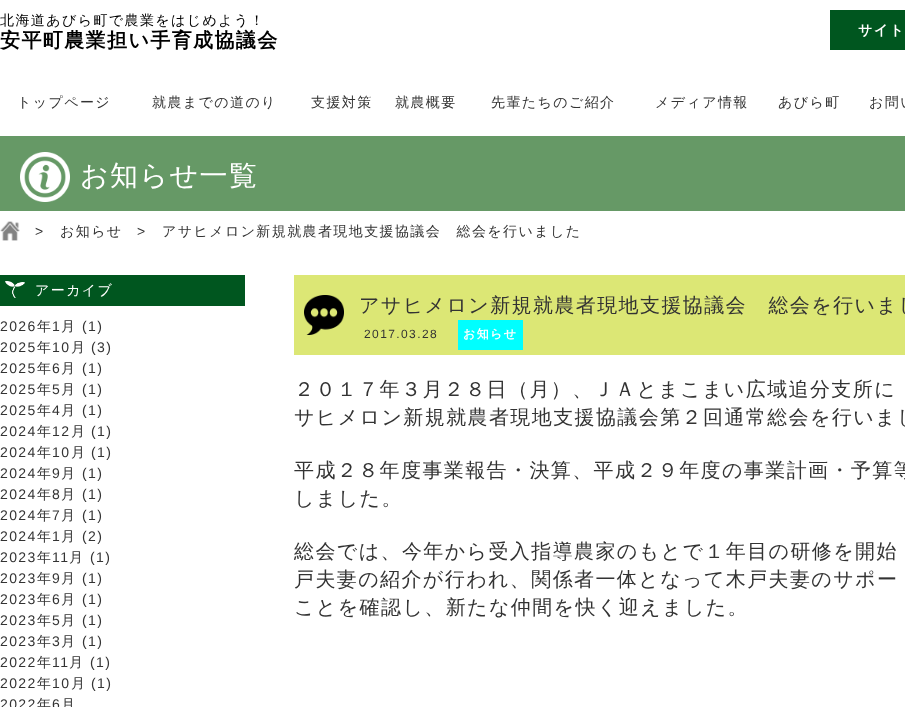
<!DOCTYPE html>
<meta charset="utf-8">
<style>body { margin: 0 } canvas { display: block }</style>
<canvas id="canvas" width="905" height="707"></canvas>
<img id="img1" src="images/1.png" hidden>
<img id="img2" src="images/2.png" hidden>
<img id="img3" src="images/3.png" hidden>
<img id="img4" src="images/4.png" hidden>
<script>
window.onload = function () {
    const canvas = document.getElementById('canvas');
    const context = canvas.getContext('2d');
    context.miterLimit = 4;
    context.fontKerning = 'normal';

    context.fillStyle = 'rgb(255, 255, 255)';
    context.fillRect(0, 0, 905, 707);
    context.fillStyle = 'rgb(0, 86, 31)';
    context.fillRect(830, 10, 75, 40);
    context.fillStyle = 'rgb(102, 153, 102)';
    context.fillRect(0, 136, 905, 75);
    context.drawImage(document.getElementById('img1'), 20, 152, 50, 50);
    context.drawImage(document.getElementById('img2'), 0, 221, 20, 20);
    context.fillStyle = 'rgb(0, 86, 31)';
    context.fillRect(0, 275, 245, 31);
    context.drawImage(document.getElementById('img3'), 5, 281, 20, 17);
    context.fillStyle = 'rgb(220, 231, 117)';
    context.fillRect(294, 275, 611, 80);
    context.drawImage(document.getElementById('img4'), 304, 295, 40, 40);
    context.fillStyle = 'rgb(0, 255, 255)';
    context.fillRect(458, 320, 65, 30);
    context.letterSpacing = '1.4px';
    context.font = '500 14px WenQuanYi Zen Hei';
    context.fillStyle = 'rgb(0, 0, 0)';
    context.fillText('北海道あびら町で農業をはじめよう！', 0, 25);
    context.font = 'bold 20px WenQuanYi Zen Hei';
    context.fillText('安平町農業担い手育成協議会', 0, 47);
    context.font = 'bold 14px WenQuanYi Zen Hei';
    context.fillStyle = 'rgb(255, 255, 255)';
    context.fillText('サイト', 858, 35);
    context.font = '500 14px WenQuanYi Zen Hei';
    context.fillStyle = 'rgb(51, 51, 51)';
    context.fillText('トップページ', 17, 107);
    context.fillText('就農までの道のり', 152, 107);
    context.fillText('支援対策', 311, 107);
    context.fillText('就農概要', 395, 107);
    context.fillText('先輩たちのご紹介', 491, 107);
    context.fillText('メディア情報', 655, 107);
    context.fillText('あびら町', 778, 107);
    context.fillText('お問い', 869, 107);
    context.font = '500 28px WenQuanYi Zen Hei';
    context.fillStyle = 'rgb(255, 255, 255)';
    context.fillText('お知らせ一覧', 80, 185);
    context.font = '14px Liberation Sans';
    context.fillStyle = 'rgb(51, 51, 51)';
    context.fillText('>', 35, 236);
    context.font = '500 14px WenQuanYi Zen Hei';
    context.fillText('お知らせ', 60, 236);
    context.font = '14px Liberation Sans';
    context.fillText('>', 137, 236);
    context.font = '500 14px WenQuanYi Zen Hei';
    context.fillText('アサヒメロン新規就農者現地支援協議会　総会を行いました', 162, 236);
    context.fillStyle = 'rgb(255, 255, 255)';
    context.fillText('アーカイブ', 35, 295);
    context.font = '14px Liberation Sans';
    context.fillStyle = 'rgb(51, 51, 51)';
    context.fillText('2026', 0, 331);
    context.font = '500 14px WenQuanYi Zen Hei';
    context.fillText('年', 37, 331);
    context.font = '14px Liberation Sans';
    context.fillText('1', 52, 331);
    context.font = '500 14px WenQuanYi Zen Hei';
    context.fillText('月', 61, 331);
    context.font = '14px Liberation Sans';
    context.fillText('(1)', 82, 331);
    context.fillText('2025', 0, 352);
    context.font = '500 14px WenQuanYi Zen Hei';
    context.fillText('年', 37, 352);
    context.font = '14px Liberation Sans';
    context.fillText('10', 52, 352);
    context.font = '500 14px WenQuanYi Zen Hei';
    context.fillText('月', 71, 352);
    context.font = '14px Liberation Sans';
    context.fillText('(3)', 91, 352);
    context.fillText('2025', 0, 373);
    context.font = '500 14px WenQuanYi Zen Hei';
    context.fillText('年', 37, 373);
    context.font = '14px Liberation Sans';
    context.fillText('6', 52, 373);
    context.font = '500 14px WenQuanYi Zen Hei';
    context.fillText('月', 61, 373);
    context.font = '14px Liberation Sans';
    context.fillText('(1)', 82, 373);
    context.fillText('2025', 0, 394);
    context.font = '500 14px WenQuanYi Zen Hei';
    context.fillText('年', 37, 394);
    context.font = '14px Liberation Sans';
    context.fillText('5', 52, 394);
    context.font = '500 14px WenQuanYi Zen Hei';
    context.fillText('月', 61, 394);
    context.font = '14px Liberation Sans';
    context.fillText('(1)', 82, 394);
    context.fillText('2025', 0, 415);
    context.font = '500 14px WenQuanYi Zen Hei';
    context.fillText('年', 37, 415);
    context.font = '14px Liberation Sans';
    context.fillText('4', 52, 415);
    context.font = '500 14px WenQuanYi Zen Hei';
    context.fillText('月', 61, 415);
    context.font = '14px Liberation Sans';
    context.fillText('(1)', 82, 415);
    context.fillText('2024', 0, 436);
    context.font = '500 14px WenQuanYi Zen Hei';
    context.fillText('年', 37, 436);
    context.font = '14px Liberation Sans';
    context.fillText('12', 52, 436);
    context.font = '500 14px WenQuanYi Zen Hei';
    context.fillText('月', 71, 436);
    context.font = '14px Liberation Sans';
    context.fillText('(1)', 91, 436);
    context.fillText('2024', 0, 457);
    context.font = '500 14px WenQuanYi Zen Hei';
    context.fillText('年', 37, 457);
    context.font = '14px Liberation Sans';
    context.fillText('10', 52, 457);
    context.font = '500 14px WenQuanYi Zen Hei';
    context.fillText('月', 71, 457);
    context.font = '14px Liberation Sans';
    context.fillText('(1)', 91, 457);
    context.fillText('2024', 0, 478);
    context.font = '500 14px WenQuanYi Zen Hei';
    context.fillText('年', 37, 478);
    context.font = '14px Liberation Sans';
    context.fillText('9', 52, 478);
    context.font = '500 14px WenQuanYi Zen Hei';
    context.fillText('月', 61, 478);
    context.font = '14px Liberation Sans';
    context.fillText('(1)', 82, 478);
    context.fillText('2024', 0, 499);
    context.font = '500 14px WenQuanYi Zen Hei';
    context.fillText('年', 37, 499);
    context.font = '14px Liberation Sans';
    context.fillText('8', 52, 499);
    context.font = '500 14px WenQuanYi Zen Hei';
    context.fillText('月', 61, 499);
    context.font = '14px Liberation Sans';
    context.fillText('(1)', 82, 499);
    context.fillText('2024', 0, 520);
    context.font = '500 14px WenQuanYi Zen Hei';
    context.fillText('年', 37, 520);
    context.font = '14px Liberation Sans';
    context.fillText('7', 52, 520);
    context.font = '500 14px WenQuanYi Zen Hei';
    context.fillText('月', 61, 520);
    context.font = '14px Liberation Sans';
    context.fillText('(1)', 82, 520);
    context.fillText('2024', 0, 541);
    context.font = '500 14px WenQuanYi Zen Hei';
    context.fillText('年', 37, 541);
    context.font = '14px Liberation Sans';
    context.fillText('1', 52, 541);
    context.font = '500 14px WenQuanYi Zen Hei';
    context.fillText('月', 61, 541);
    context.font = '14px Liberation Sans';
    context.fillText('(2)', 82, 541);
    context.fillText('2023', 0, 562);
    context.font = '500 14px WenQuanYi Zen Hei';
    context.fillText('年', 37, 562);
    context.font = '14px Liberation Sans';
    context.fillText('11', 52, 562);
    context.font = '500 14px WenQuanYi Zen Hei';
    context.fillText('月', 69, 562);
    context.font = '14px Liberation Sans';
    context.fillText('(1)', 90, 562);
    context.fillText('2023', 0, 583);
    context.font = '500 14px WenQuanYi Zen Hei';
    context.fillText('年', 37, 583);
    context.font = '14px Liberation Sans';
    context.fillText('9', 52, 583);
    context.font = '500 14px WenQuanYi Zen Hei';
    context.fillText('月', 61, 583);
    context.font = '14px Liberation Sans';
    context.fillText('(1)', 82, 583);
    context.fillText('2023', 0, 604);
    context.font = '500 14px WenQuanYi Zen Hei';
    context.fillText('年', 37, 604);
    context.font = '14px Liberation Sans';
    context.fillText('6', 52, 604);
    context.font = '500 14px WenQuanYi Zen Hei';
    context.fillText('月', 61, 604);
    context.font = '14px Liberation Sans';
    context.fillText('(1)', 82, 604);
    context.fillText('2023', 0, 625);
    context.font = '500 14px WenQuanYi Zen Hei';
    context.fillText('年', 37, 625);
    context.font = '14px Liberation Sans';
    context.fillText('5', 52, 625);
    context.font = '500 14px WenQuanYi Zen Hei';
    context.fillText('月', 61, 625);
    context.font = '14px Liberation Sans';
    context.fillText('(1)', 82, 625);
    context.fillText('2023', 0, 646);
    context.font = '500 14px WenQuanYi Zen Hei';
    context.fillText('年', 37, 646);
    context.font = '14px Liberation Sans';
    context.fillText('3', 52, 646);
    context.font = '500 14px WenQuanYi Zen Hei';
    context.fillText('月', 61, 646);
    context.font = '14px Liberation Sans';
    context.fillText('(1)', 82, 646);
    context.fillText('2022', 0, 667);
    context.font = '500 14px WenQuanYi Zen Hei';
    context.fillText('年', 37, 667);
    context.font = '14px Liberation Sans';
    context.fillText('11', 52, 667);
    context.font = '500 14px WenQuanYi Zen Hei';
    context.fillText('月', 69, 667);
    context.font = '14px Liberation Sans';
    context.fillText('(1)', 90, 667);
    context.fillText('2022', 0, 688);
    context.font = '500 14px WenQuanYi Zen Hei';
    context.fillText('年', 37, 688);
    context.font = '14px Liberation Sans';
    context.fillText('10', 52, 688);
    context.font = '500 14px WenQuanYi Zen Hei';
    context.fillText('月', 71, 688);
    context.font = '14px Liberation Sans';
    context.fillText('(1)', 91, 688);
    context.fillText('2022', 0, 709);
    context.font = '500 14px WenQuanYi Zen Hei';
    context.fillText('年', 37, 709);
    context.font = '14px Liberation Sans';
    context.fillText('6', 52, 709);
    context.font = '500 14px WenQuanYi Zen Hei';
    context.fillText('月', 61, 709);
    context.font = '500 20px WenQuanYi Zen Hei';
    context.fillText('アサヒメロン新規就農者現地支援協議会　総会を行いまし', 359, 312);
    context.font = '12px Liberation Sans';
    context.fillText('2017.03.28', 364, 338);
    context.font = 'bold 12px WenQuanYi Zen Hei';
    context.fillStyle = 'rgb(255, 255, 255)';
    context.fillText('お知らせ', 463, 338);
    context.font = '500 20px WenQuanYi Zen Hei';
    context.fillStyle = 'rgb(51, 51, 51)';
    context.fillText('２０１７年３月２８日（月）、ＪＡとまこまい広域追分支所に', 294, 396);
    context.fillText('サヒメロン新規就農者現地支援協議会第２回通常総会を行いまし', 294, 424);
    context.fillText('平成２８年度事業報告・決算、平成２９年度の事業計画・予算等', 294, 477);
    context.fillText('しました。', 294, 505);
    context.fillText('総会では、今年から受入指導農家のもとで１年目の研修を開始', 294, 558);
    context.fillText('戸夫妻の紹介が行われ、関係者一体となって木戸夫妻のサポー', 294, 586);
    context.fillText('ことを確認し、新たな仲間を快く迎えました。', 294, 614);
};
</script>
